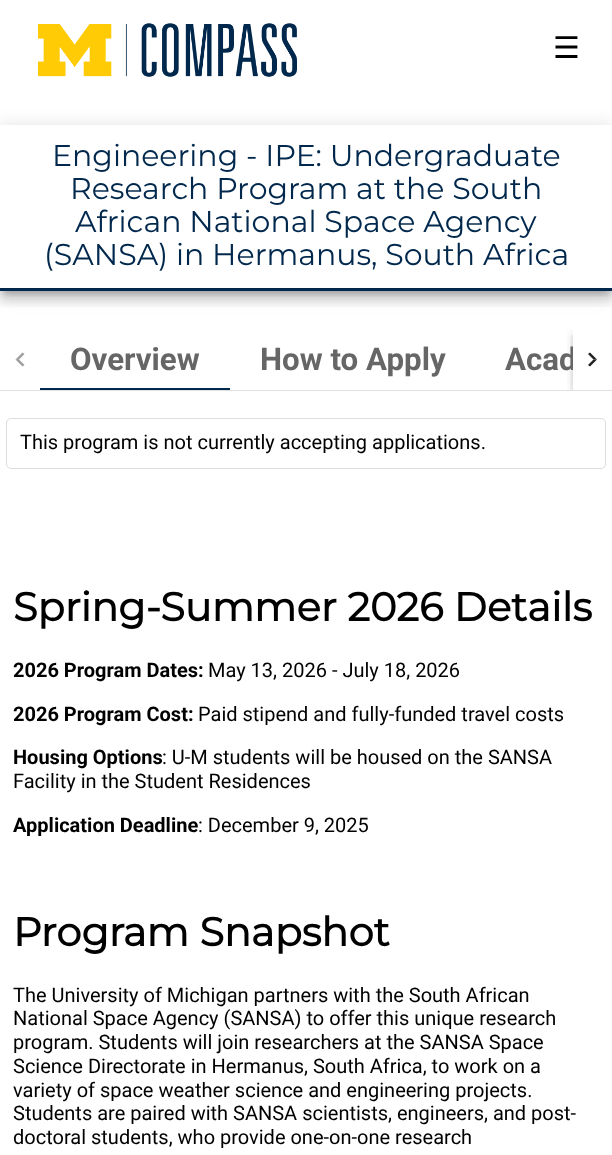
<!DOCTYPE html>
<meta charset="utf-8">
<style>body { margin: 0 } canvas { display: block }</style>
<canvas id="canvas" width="612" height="1155"></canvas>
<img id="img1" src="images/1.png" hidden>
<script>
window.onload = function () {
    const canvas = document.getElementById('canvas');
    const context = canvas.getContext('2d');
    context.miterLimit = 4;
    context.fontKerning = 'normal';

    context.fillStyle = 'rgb(255, 255, 255)';
    context.fillRect(0, 0, 612, 1155);
    context.drawImage(document.getElementById('img1'), 38, 23, 259, 54);
    context.save();
    context.beginPath();
    context.moveTo(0, 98);
    context.lineTo(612, 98);
    context.lineTo(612, 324);
    context.lineTo(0, 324);
    context.closePath();
    context.moveTo(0, 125);
    context.lineTo(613, 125);
    context.lineTo(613, 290);
    context.lineTo(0, 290);
    context.closePath();
    context.clip('evenodd');
    context.fillStyle = 'rgba(0, 0, 0, 0.12)';
    context.filter = 'blur(9px)';
    context.beginPath();
    context.rect(-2, 126, 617, 170);
    context.fill();
    context.filter = 'none';
    context.restore();
    context.save();
    context.beginPath();
    context.rect(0, 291, 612, 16);
    context.clip();
    context.fillStyle = 'rgba(0, 0, 0, 0.14)';
    context.filter = 'blur(6px)';
    context.beginPath();
    context.rect(-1, 134, 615, 167);
    context.fill();
    context.filter = 'none';
    context.restore();
    context.save();
    context.beginPath();
    context.rect(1, 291, 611, 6);
    context.clip();
    context.fillStyle = 'rgba(0, 0, 0, 0.2)';
    context.filter = 'blur(3px)';
    context.beginPath();
    context.rect(4, 135, 605, 158);
    context.fill();
    context.filter = 'none';
    context.restore();
    context.fillStyle = 'rgb(0, 39, 76)';
    context.fillRect(0, 288, 612, 3);
    context.fillStyle = 'rgb(224, 224, 224)';
    context.fillRect(0, 390, 612, 1);
    context.fillStyle = 'rgb(158, 158, 158)';
    context.beginPath();
    context.moveTo(22.5, 366.5);
    context.lineTo(15.5, 359.5);
    context.lineTo(19, 359.5);
    context.lineTo(24.5, 365);
    context.closePath();
    context.fill();
    context.fillStyle = 'rgba(0, 0, 0, 0.38)';
    context.beginPath();
    context.moveTo(15.5, 359.5);
    context.lineTo(22.5, 352.5);
    context.lineTo(24.5, 354);
    context.lineTo(19, 359.5);
    context.closePath();
    context.fill();
    context.fillStyle = 'rgb(0, 39, 76)';
    context.fillRect(40, 388, 190, 2);
    context.save();
    context.beginPath();
    context.rect(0, 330, 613, 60);
    context.clip();
    context.beginPath();
    context.rect(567, 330, 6, 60);
    context.clip();
    context.fillStyle = 'rgba(0, 0, 0, 0.12)';
    context.filter = 'blur(6px)';
    context.beginPath();
    context.rect(573, 331, 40, 60);
    context.fill();
    context.filter = 'none';
    context.restore();
    context.save();
    context.beginPath();
    context.rect(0, 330, 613, 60);
    context.clip();
    context.beginPath();
    context.rect(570, 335, 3, 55);
    context.clip();
    context.fillStyle = 'rgba(0, 0, 0, 0.14)';
    context.filter = 'blur(3px)';
    context.beginPath();
    context.rect(573, 335, 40, 60);
    context.fill();
    context.filter = 'none';
    context.restore();
    context.fillStyle = 'rgb(33, 33, 33)';
    context.beginPath();
    context.moveTo(590, 352.5);
    context.lineTo(597, 359.5);
    context.lineTo(593.5, 359.5);
    context.lineTo(588, 354);
    context.closePath();
    context.fill();
    context.beginPath();
    context.moveTo(597, 359.5);
    context.lineTo(590, 366.5);
    context.lineTo(588, 365);
    context.lineTo(593.5, 359.5);
    context.closePath();
    context.fill();
    context.beginPath();
    context.roundRect(6.5, 418.5, 599, 50, 4.5);
    context.strokeStyle = 'rgb(221, 221, 221)';
    context.stroke();
    context.font = '30px DejaVu Sans';
    context.fillStyle = 'rgb(0, 0, 0)';
    context.fillText('☰', 553, 58);
    context.font = '30px Montserrat';
    context.fillStyle = 'rgb(0, 39, 76)';
    context.fillText('Engineering - IPE: Undergraduate', 52, 166);
    context.fillText('Research Program at the South', 70, 199);
    context.fillText('African National Space Agency', 75, 232);
    context.fillText('(SANSA) in Hermanus, South Africa', 44, 265);
    context.font = 'bold 31.25px Roboto';
    context.fillStyle = 'rgb(102, 102, 102)';
    context.fillText('Overview', 70, 370);
    context.fillText('How to Apply', 260, 370);
    context.save();
    context.beginPath();
    context.rect(475, 330, 98, 60);
    context.clip();
    context.fillText('Acad', 505, 370);
    context.restore();
    context.font = '20px Roboto';
    context.fillStyle = 'rgb(0, 0, 0)';
    context.fillText('This program is not currently accepting applications.', 20, 449);
    context.font = 'bold 40px Montserrat';
    context.fillText('Spring-Summer 2026 Details', 13, 621);
    context.font = 'bold 20px Roboto';
    context.fillText('2026 Program Dates:', 13, 677);
    context.font = '20px Roboto';
    context.fillText('May 13, 2026 - July 18, 2026', 208, 677);
    context.font = 'bold 20px Roboto';
    context.fillText('2026 Program Cost:', 13, 721);
    context.font = '20px Roboto';
    context.fillText('Paid stipend and fully-funded travel costs', 198, 721);
    context.font = 'bold 20px Roboto';
    context.fillText('Housing Options', 13, 764);
    context.font = '20px Roboto';
    context.fillText(': U-M students will be housed on the SANSA', 162, 764);
    context.fillText('Facility in the Student Residences', 13, 788);
    context.font = 'bold 20px Roboto';
    context.fillText('Application Deadline', 13, 832);
    context.font = '20px Roboto';
    context.fillText(': December 9, 2025', 198, 832);
    context.font = 'bold 40px Montserrat';
    context.fillText('Program Snapshot', 13, 946);
    context.font = '20px Roboto';
    context.fillText('The University of Michigan partners with the South African', 13, 1002);
    context.fillText('National Space Agency (SANSA) to offer this unique research', 13, 1025);
    context.fillText('program. Students will join researchers at the SANSA Space', 13, 1049);
    context.fillText('Science Directorate in Hermanus, South Africa, to work on a', 13, 1073);
    context.fillText('variety of space weather science and engineering projects.', 13, 1097);
    context.fillText('Students are paired with SANSA scientists, engineers, and post-', 13, 1120);
    context.fillText('doctoral students, who provide one-on-one research', 13, 1144);
};
</script>
